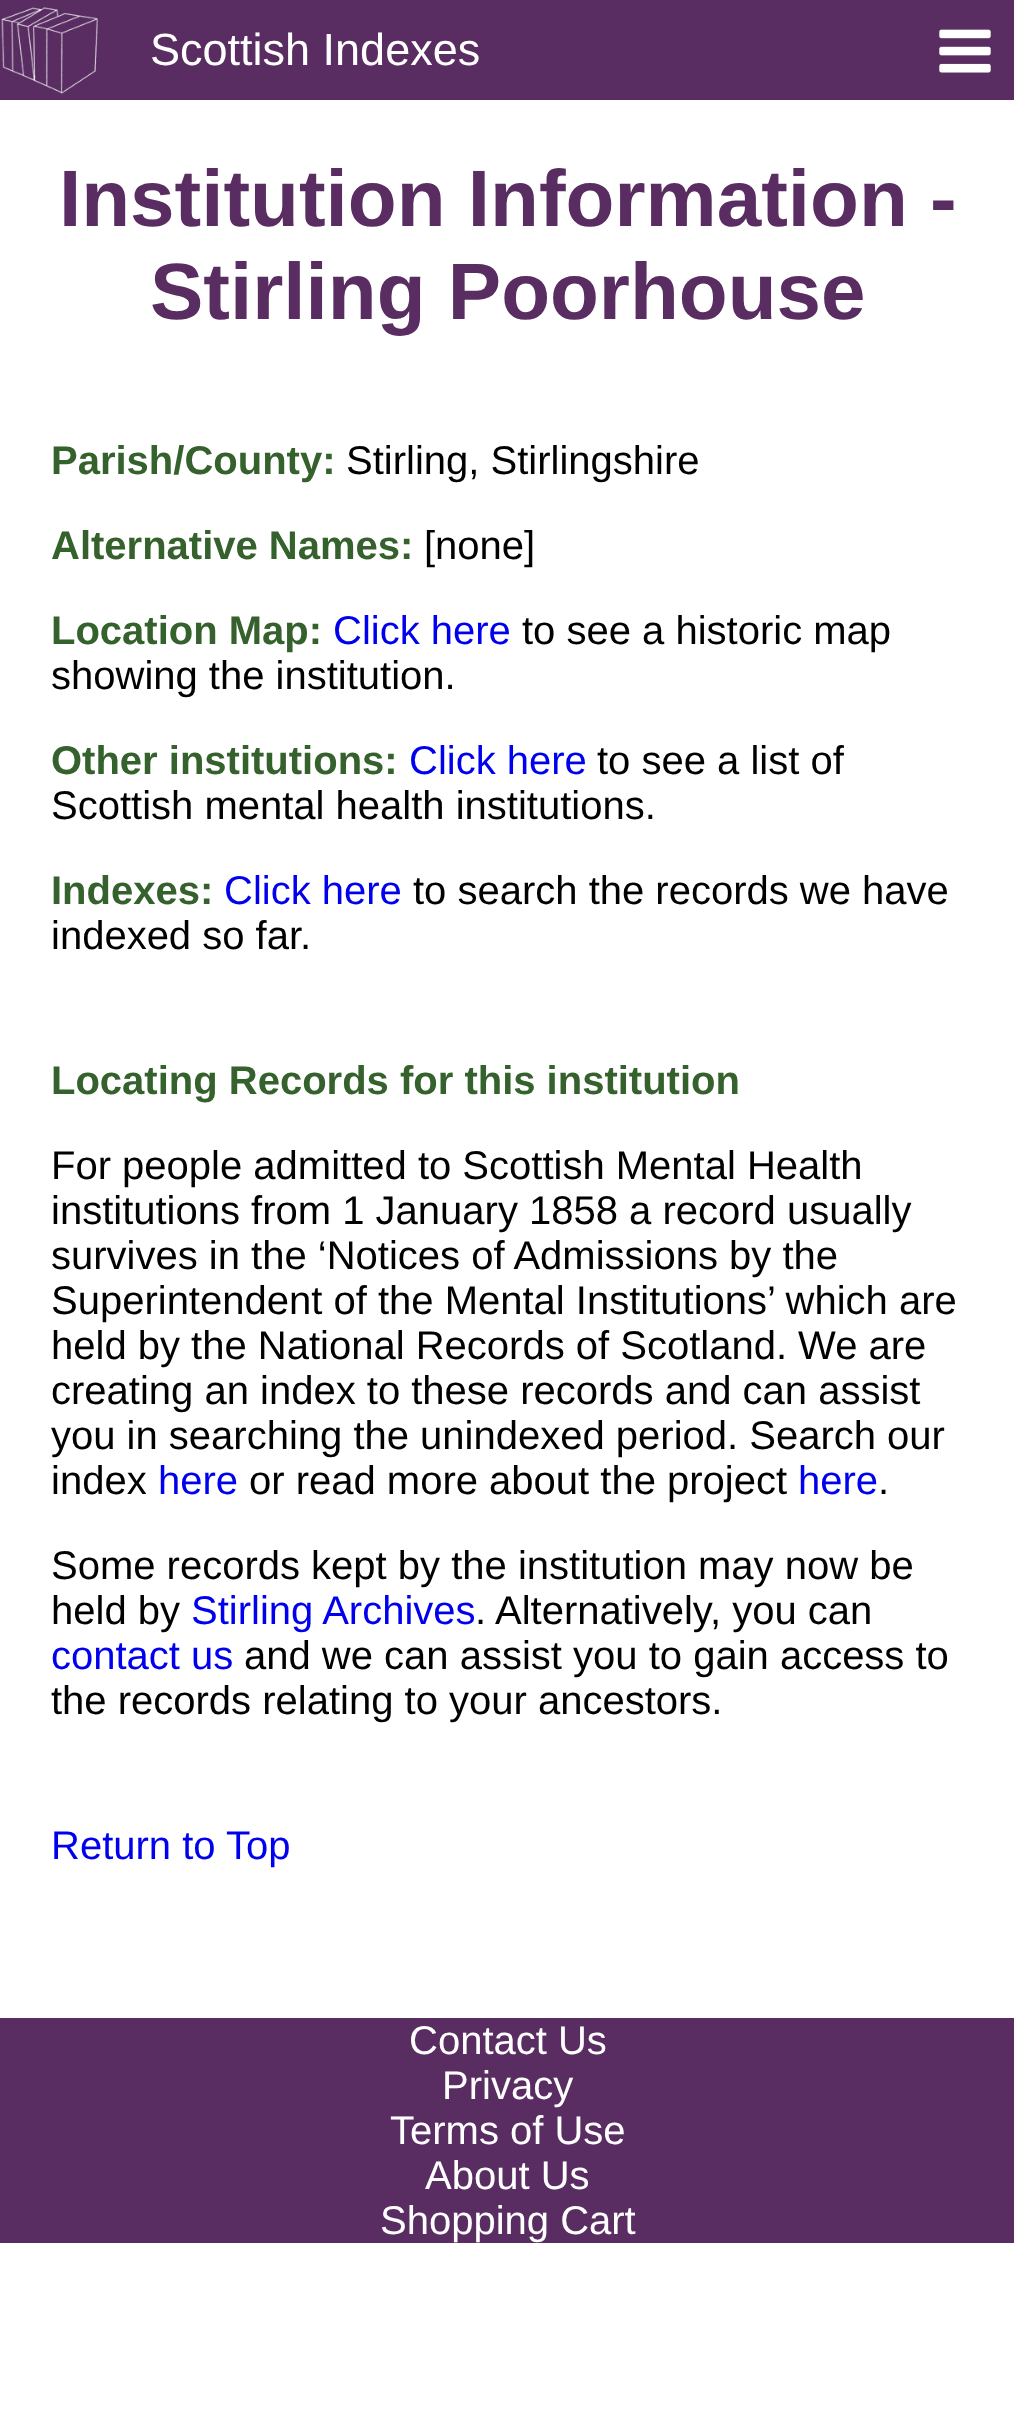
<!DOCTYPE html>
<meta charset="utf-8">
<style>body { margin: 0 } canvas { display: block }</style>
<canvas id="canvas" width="1014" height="2415"></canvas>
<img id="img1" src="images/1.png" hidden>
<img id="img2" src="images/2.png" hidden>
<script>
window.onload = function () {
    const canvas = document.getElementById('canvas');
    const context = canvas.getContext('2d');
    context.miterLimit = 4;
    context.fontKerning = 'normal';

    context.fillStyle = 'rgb(255, 255, 255)';
    context.fillRect(0, 0, 1014, 2415);
    context.fillStyle = 'rgb(89, 45, 97)';
    context.fillRect(0, 0, 1014, 100);
    context.drawImage(document.getElementById('img1'), 0, 7, 100, 87);
    context.drawImage(document.getElementById('img2'), 939, 29, 52, 44);
    context.fillRect(0, 2018, 1014, 225);
    context.font = '45px Liberation Sans';
    context.fillStyle = 'rgb(255, 255, 255)';
    context.fillText('Scottish Indexes', 150, 65);
    context.font = 'bold 80px Liberation Sans';
    context.fillStyle = 'rgb(89, 45, 97)';
    context.fillText('Institution Information -', 59, 226);
    context.fillText('Stirling Poorhouse', 150, 319);
    context.font = 'bold 40px Liberation Sans';
    context.fillStyle = 'rgb(53, 97, 45)';
    context.fillText('Parish/County:', 51, 474);
    context.font = '40px Liberation Sans';
    context.fillStyle = 'rgb(0, 0, 0)';
    context.fillText('Stirling, Stirlingshire', 346, 474);
    context.font = 'bold 40px Liberation Sans';
    context.fillStyle = 'rgb(53, 97, 45)';
    context.fillText('Alternative Names:', 51, 559);
    context.font = '40px Liberation Sans';
    context.fillStyle = 'rgb(0, 0, 0)';
    context.fillText('[none]', 424, 559);
    context.font = 'bold 40px Liberation Sans';
    context.fillStyle = 'rgb(53, 97, 45)';
    context.fillText('Location Map:', 51, 644);
    context.font = '40px Liberation Sans';
    context.fillStyle = 'rgb(0, 0, 238)';
    context.fillText('Click here', 333, 644);
    context.fillStyle = 'rgb(0, 0, 0)';
    context.fillText('to see a historic map', 522, 644);
    context.fillText('showing the institution.', 51, 689);
    context.font = 'bold 40px Liberation Sans';
    context.fillStyle = 'rgb(53, 97, 45)';
    context.fillText('Other institutions:', 51, 774);
    context.font = '40px Liberation Sans';
    context.fillStyle = 'rgb(0, 0, 238)';
    context.fillText('Click here', 409, 774);
    context.fillStyle = 'rgb(0, 0, 0)';
    context.fillText('to see a list of', 597, 774);
    context.fillText('Scottish mental health institutions.', 51, 819);
    context.font = 'bold 40px Liberation Sans';
    context.fillStyle = 'rgb(53, 97, 45)';
    context.fillText('Indexes:', 51, 904);
    context.font = '40px Liberation Sans';
    context.fillStyle = 'rgb(0, 0, 238)';
    context.fillText('Click here', 224, 904);
    context.fillStyle = 'rgb(0, 0, 0)';
    context.fillText('to search the records we have', 413, 904);
    context.fillText('indexed so far.', 51, 949);
    context.font = 'bold 40px Liberation Sans';
    context.fillStyle = 'rgb(53, 97, 45)';
    context.fillText('Locating Records for this institution', 51, 1094);
    context.font = '40px Liberation Sans';
    context.fillStyle = 'rgb(0, 0, 0)';
    context.fillText('For people admitted to Scottish Mental Health', 51, 1179);
    context.fillText('institutions from 1 January 1858 a record usually', 51, 1224);
    context.fillText('survives in the ‘Notices of Admissions by the', 51, 1269);
    context.fillText('Superintendent of the Mental Institutions’ which are', 51, 1314);
    context.fillText('held by the National Records of Scotland. We are', 51, 1359);
    context.fillText('creating an index to these records and can assist', 51, 1404);
    context.fillText('you in searching the unindexed period. Search our', 51, 1449);
    context.fillText('index', 51, 1494);
    context.fillStyle = 'rgb(0, 0, 238)';
    context.fillText('here', 158, 1494);
    context.fillStyle = 'rgb(0, 0, 0)';
    context.fillText('or read more about the project', 249, 1494);
    context.fillStyle = 'rgb(0, 0, 238)';
    context.fillText('here', 798, 1494);
    context.fillStyle = 'rgb(0, 0, 0)';
    context.fillText('.', 878, 1494);
    context.fillText('Some records kept by the institution may now be', 51, 1579);
    context.fillText('held by', 51, 1624);
    context.fillStyle = 'rgb(0, 0, 238)';
    context.fillText('Stirling Archives', 191, 1624);
    context.fillStyle = 'rgb(0, 0, 0)';
    context.fillText('.', 475, 1624);
    context.fillText('Alternatively, you can', 495, 1624);
    context.fillStyle = 'rgb(0, 0, 238)';
    context.fillText('contact us', 51, 1669);
    context.fillStyle = 'rgb(0, 0, 0)';
    context.fillText('and we can assist you to gain access to', 244, 1669);
    context.fillText('the records relating to your ancestors.', 51, 1714);
    context.fillStyle = 'rgb(0, 0, 238)';
    context.fillText('Return to Top', 51, 1859);
    context.fillStyle = 'rgb(255, 255, 255)';
    context.fillText('Contact Us', 409, 2054);
    context.fillText('Privacy', 442, 2099);
    context.fillText('Terms of Use', 390, 2144);
    context.fillText('About Us', 425, 2189);
    context.fillText('Shopping Cart', 380, 2234);
};
</script>
